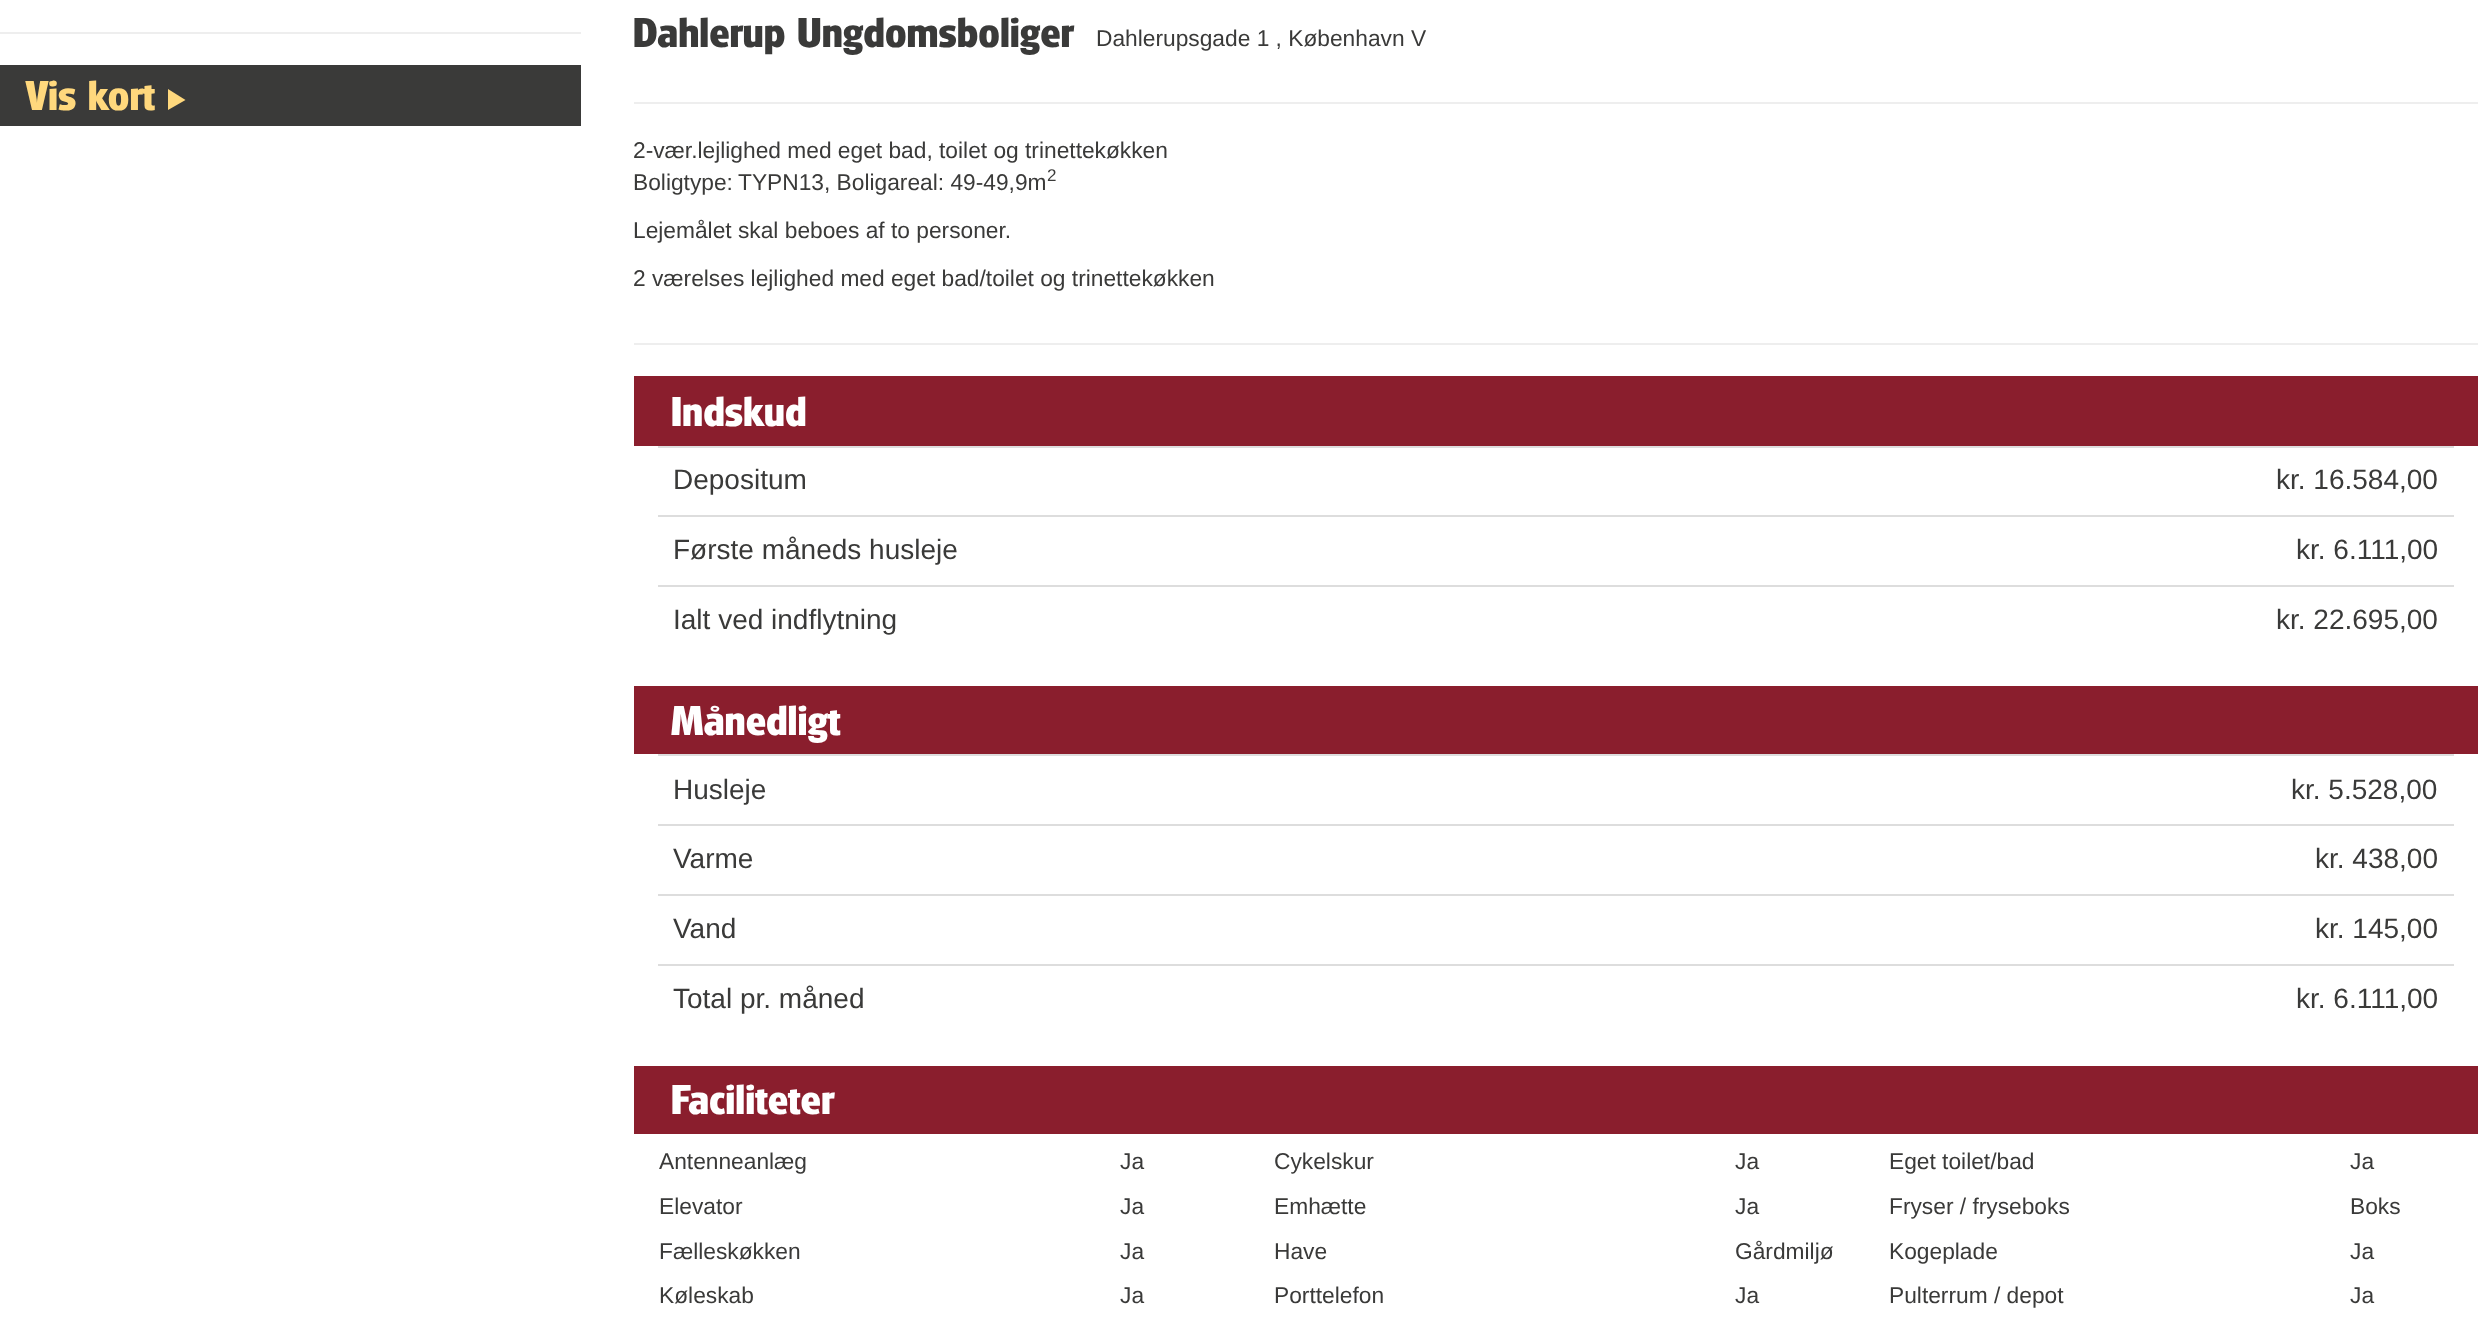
<!DOCTYPE html>
<meta charset="utf-8">
<style>body { margin: 0 } canvas { display: block }</style>
<canvas id="canvas" width="2478" height="1323"></canvas>
<script>
window.onload = function () {
    const canvas = document.getElementById('canvas');
    const context = canvas.getContext('2d');
    context.miterLimit = 4;
    context.fontKerning = 'normal';

    context.fillStyle = 'rgb(255, 255, 255)';
    context.fillRect(0, 0, 2478, 1323);
    context.fillStyle = 'rgb(238, 238, 238)';
    context.fillRect(0, 32, 581, 2);
    context.fillStyle = 'rgb(58, 58, 57)';
    context.fillRect(0, 65, 581, 61);
    context.fillStyle = 'rgb(255, 216, 125)';
    context.beginPath();
    context.moveTo(168, 110);
    context.lineTo(168, 89);
    context.lineTo(185.5, 100);
    context.closePath();
    context.fill();
    context.fillStyle = 'rgb(238, 238, 238)';
    context.fillRect(634, 102, 1844, 2);
    context.fillRect(634, 343, 1844, 2);
    context.fillStyle = 'rgb(138, 30, 45)';
    context.fillRect(634, 376, 1844, 70);
    context.fillStyle = 'rgb(221, 221, 221)';
    context.fillRect(658, 446, 1796, 2);
    context.fillRect(658, 515, 1796, 2);
    context.fillRect(658, 585, 1796, 2);
    context.fillStyle = 'rgb(138, 30, 45)';
    context.fillRect(634, 686, 1844, 68);
    context.fillStyle = 'rgb(221, 221, 221)';
    context.fillRect(658, 754, 1796, 2);
    context.fillRect(658, 824, 1796, 2);
    context.fillRect(658, 894, 1796, 2);
    context.fillRect(658, 964, 1796, 2);
    context.fillStyle = 'rgb(138, 30, 45)';
    context.fillRect(634, 1066, 1844, 68);
    context.font = 'bold 40.25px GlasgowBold';
    context.fillStyle = 'rgb(255, 216, 125)';
    context.fillText('Vis kort', 26, 110);
    context.fillStyle = 'rgb(58, 58, 57)';
    context.fillText('Dahlerup Ungdomsboliger', 633, 47);
    context.font = '22.75px Liberation Sans';
    context.fillText('Dahlerupsgade 1 , København V', 1096, 46);
    context.fillText('2-vær.lejlighed med eget bad, toilet og trinettekøkken', 633, 158);
    context.fillText('Boligtype:', 633, 190);
    context.fillText('TYPN13, Boligareal: 49-49,9m', 738, 190);
    context.font = '17px Liberation Sans';
    context.fillText('2', 1047, 181);
    context.font = '22.75px Liberation Sans';
    context.fillText('Lejemålet skal beboes af to personer.', 633, 238);
    context.fillText('2 værelses lejlighed med eget bad/toilet og trinettekøkken', 633, 286);
    context.font = 'bold 40.25px GlasgowBold';
    context.fillStyle = 'rgb(255, 255, 255)';
    context.fillText('Indskud', 671, 426);
    context.font = '28px Liberation Sans';
    context.fillStyle = 'rgb(58, 58, 57)';
    context.fillText('Depositum', 673, 489);
    context.fillText('kr. 16.584,00', 2276, 489);
    context.fillText('Første måneds husleje', 673, 559);
    context.fillText('kr. 6.111,00', 2296, 559);
    context.fillText('Ialt ved indflytning', 673, 629);
    context.fillText('kr. 22.695,00', 2276, 629);
    context.font = 'bold 40.25px GlasgowBold';
    context.fillStyle = 'rgb(255, 255, 255)';
    context.fillText('Månedligt', 671, 735);
    context.font = '28px Liberation Sans';
    context.fillStyle = 'rgb(58, 58, 57)';
    context.fillText('Husleje', 673, 799);
    context.fillText('kr. 5.528,00', 2291, 799);
    context.fillText('Varme', 673, 868);
    context.fillText('kr. 438,00', 2315, 868);
    context.fillText('Vand', 673, 938);
    context.fillText('kr. 145,00', 2315, 938);
    context.fillText('Total pr. måned', 673, 1008);
    context.fillText('kr. 6.111,00', 2296, 1008);
    context.font = 'bold 40.25px GlasgowBold';
    context.fillStyle = 'rgb(255, 255, 255)';
    context.fillText('Faciliteter', 671, 1114);
    context.font = '22.75px Liberation Sans';
    context.fillStyle = 'rgb(58, 58, 57)';
    context.fillText('Antenneanlæg', 659, 1169);
    context.fillText('Ja', 1120, 1169);
    context.fillText('Cykelskur', 1274, 1169);
    context.fillText('Ja', 1735, 1169);
    context.fillText('Eget toilet/bad', 1889, 1169);
    context.fillText('Ja', 2350, 1169);
    context.fillText('Elevator', 659, 1214);
    context.fillText('Ja', 1120, 1214);
    context.fillText('Emhætte', 1274, 1214);
    context.fillText('Ja', 1735, 1214);
    context.fillText('Fryser / fryseboks', 1889, 1214);
    context.fillText('Boks', 2350, 1214);
    context.fillText('Fælleskøkken', 659, 1259);
    context.fillText('Ja', 1120, 1259);
    context.fillText('Have', 1274, 1259);
    context.fillText('Gårdmiljø', 1735, 1259);
    context.fillText('Kogeplade', 1889, 1259);
    context.fillText('Ja', 2350, 1259);
    context.fillText('Køleskab', 659, 1303);
    context.fillText('Ja', 1120, 1303);
    context.fillText('Porttelefon', 1274, 1303);
    context.fillText('Ja', 1735, 1303);
    context.fillText('Pulterrum / depot', 1889, 1303);
    context.fillText('Ja', 2350, 1303);
};
</script>
